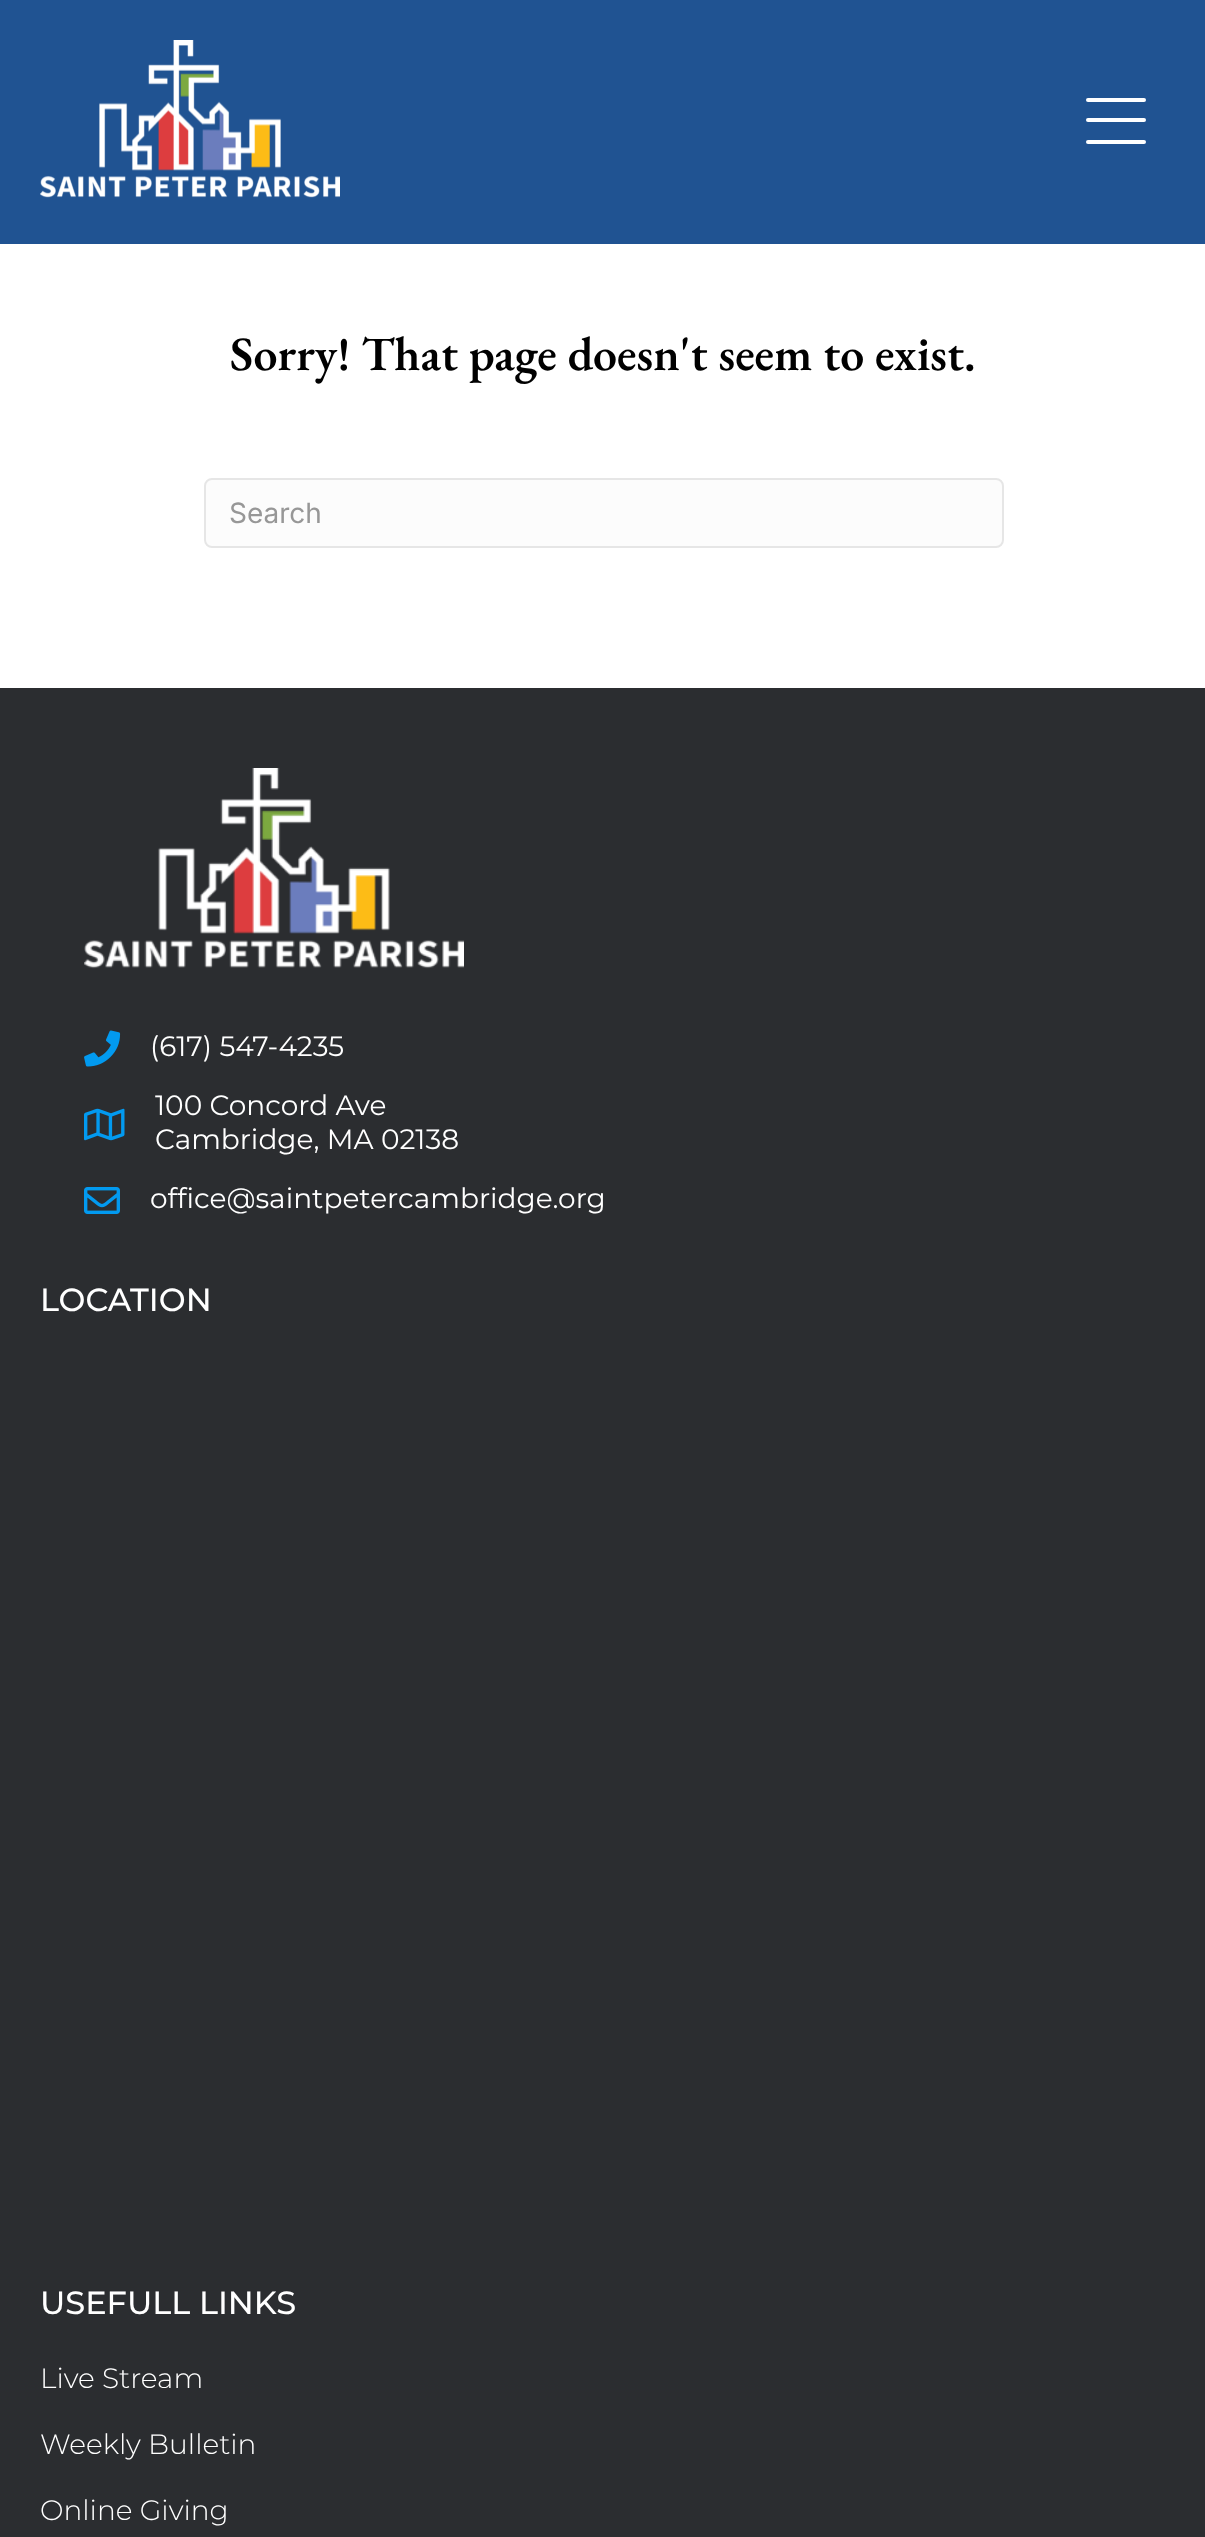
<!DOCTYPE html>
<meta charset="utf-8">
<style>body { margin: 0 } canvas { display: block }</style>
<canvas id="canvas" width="1205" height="2537"></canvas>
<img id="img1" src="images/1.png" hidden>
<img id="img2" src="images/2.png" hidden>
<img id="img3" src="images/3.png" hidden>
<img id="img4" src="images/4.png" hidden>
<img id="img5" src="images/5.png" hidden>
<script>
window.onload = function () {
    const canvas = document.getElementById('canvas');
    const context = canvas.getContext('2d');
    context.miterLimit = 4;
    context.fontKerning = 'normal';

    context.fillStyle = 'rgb(255, 255, 255)';
    context.fillRect(0, 0, 1205, 2537);
    context.fillStyle = 'rgb(32, 83, 146)';
    context.fillRect(0, 0, 1205, 244);
    context.drawImage(document.getElementById('img1'), 40, 40, 300, 158);
    context.fillStyle = 'rgb(255, 255, 255)';
    context.beginPath();
    context.roundRect(1086, 118, 60, 4, 2);
    context.fill();
    context.beginPath();
    context.roundRect(1086, 98, 60, 4, 2);
    context.fill();
    context.beginPath();
    context.roundRect(1086, 140, 60, 4, 2);
    context.fill();
    context.fillStyle = 'rgb(252, 252, 252)';
    context.beginPath();
    context.roundRect(205, 479, 798, 68, 7);
    context.fill();
    context.strokeStyle = 'rgb(230, 230, 230)';
    context.lineWidth = 2;
    context.stroke();
    context.fillStyle = 'rgb(43, 45, 48)';
    context.fillRect(0, 688, 1205, 1849);
    context.drawImage(document.getElementById('img2'), 84, 768, 380, 201);
    context.drawImage(document.getElementById('img3'), 84, 1030, 37, 37);
    context.drawImage(document.getElementById('img4'), 84, 1108, 41, 33);
    context.drawImage(document.getElementById('img5'), 84, 1187, 36, 27);
    context.font = '600 48px EB Garamond';
    context.fillStyle = 'rgb(0, 0, 0)';
    context.fillText('Sorry! That page doesn\'t seem to exist.', 230, 370);
    context.font = '28px Inter';
    context.fillStyle = 'rgb(151, 151, 151)';
    context.fillText('Search', 229, 523);
    context.font = '28px Montserrat';
    context.fillStyle = 'rgb(255, 255, 255)';
    context.fillText('(617) 547-4235', 150, 1056);
    context.fillText('100 Concord Ave', 155, 1115);
    context.fillText('Cambridge, MA 02138', 155, 1149);
    context.fillText('office@saintpetercambridge.org', 150, 1208);
    context.font = '500 32px Montserrat';
    context.fillText('LOCATION', 40, 1311);
    context.fillText('USEFULL LINKS', 40, 2314);
    context.font = '300 28px Montserrat';
    context.fillText('Live Stream', 40, 2388);
    context.fillText('Weekly Bulletin', 40, 2454);
    context.fillText('Online Giving', 40, 2520);
};
</script>
